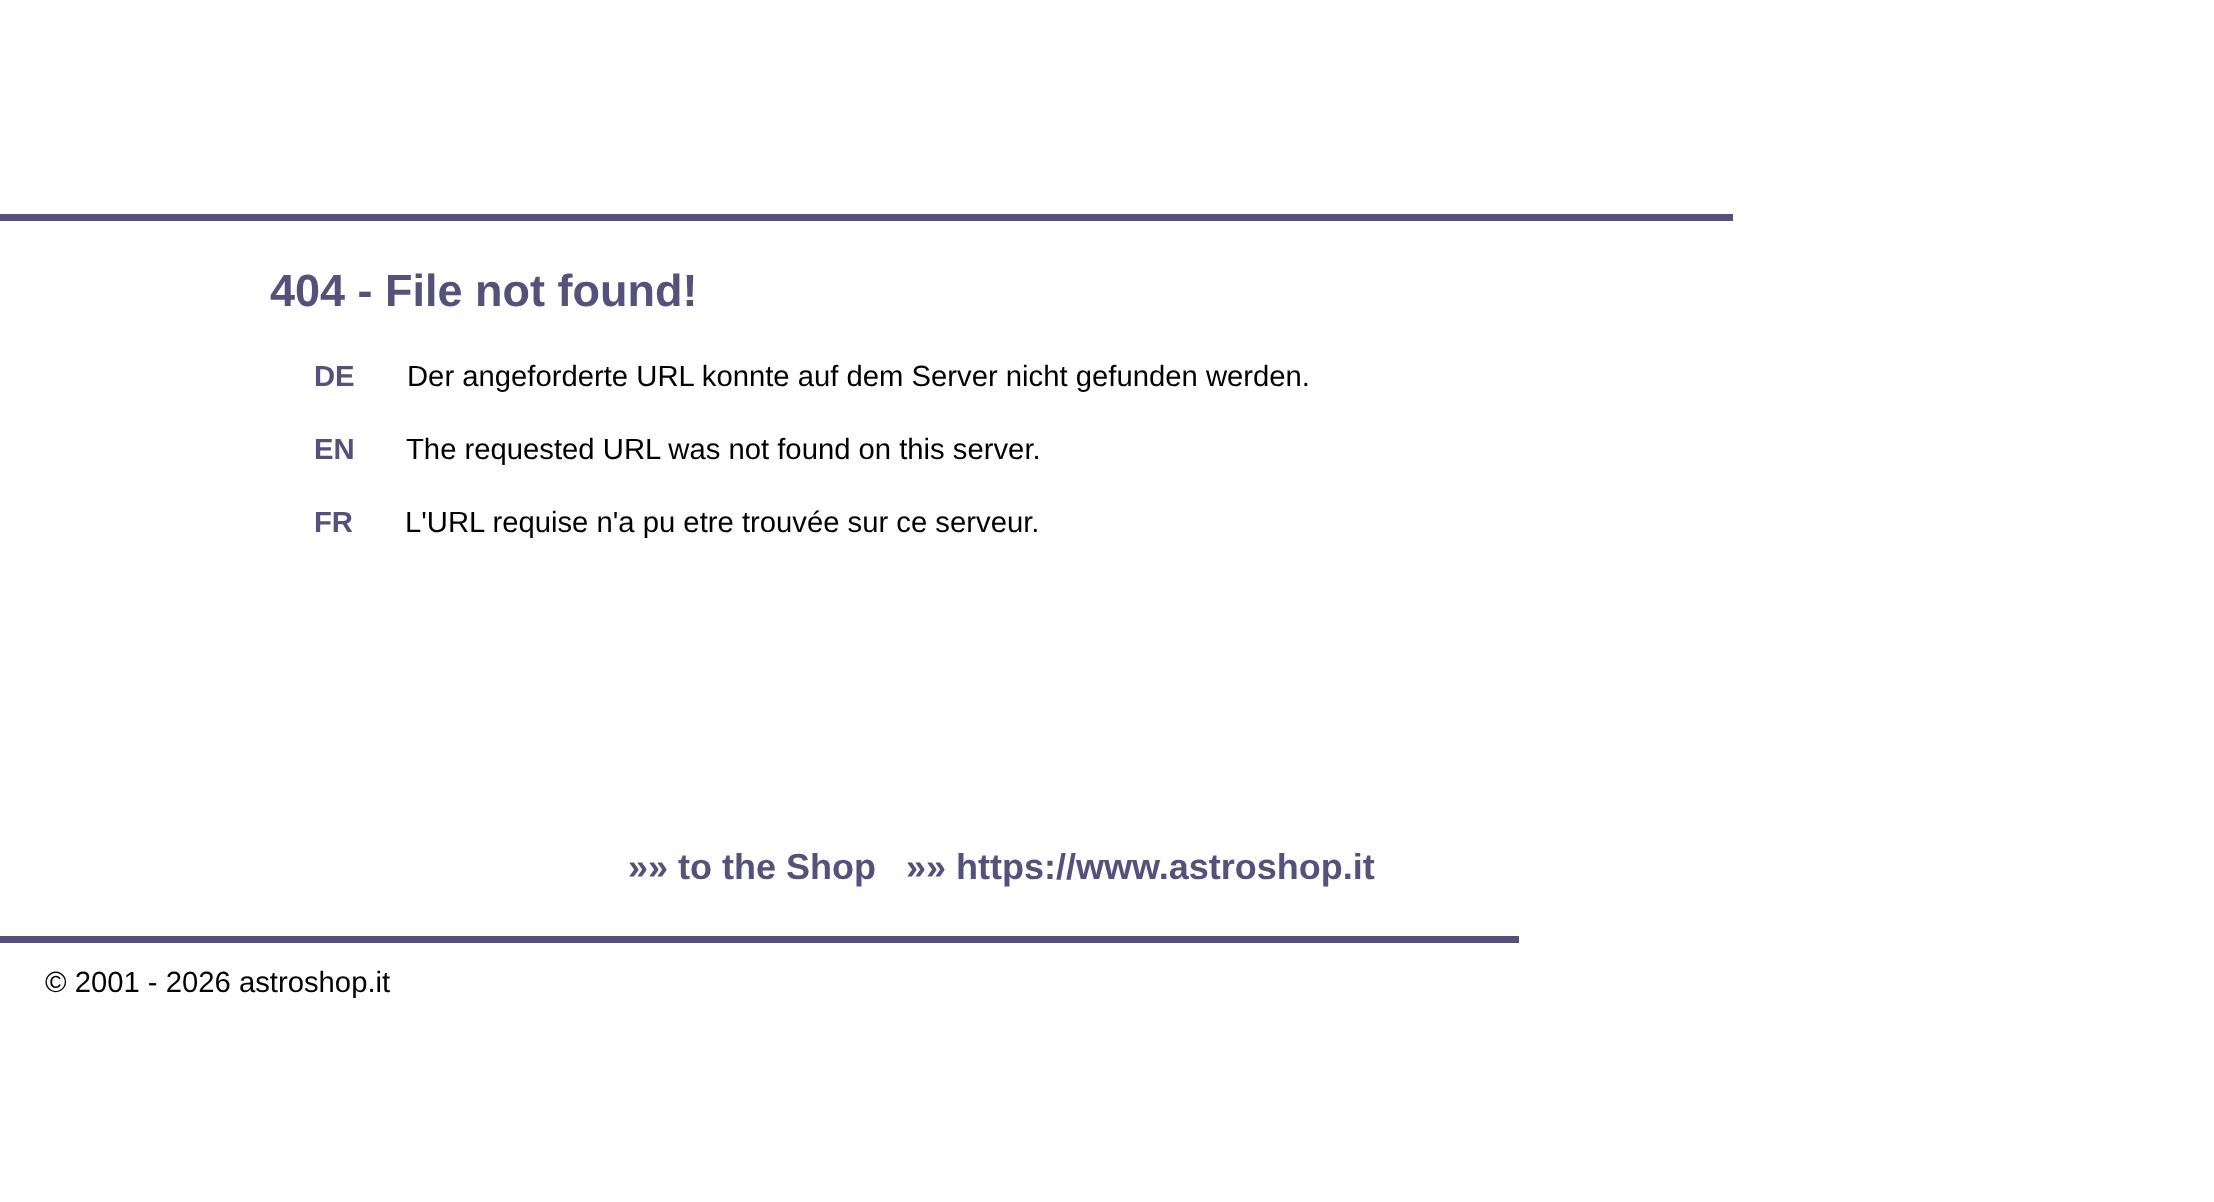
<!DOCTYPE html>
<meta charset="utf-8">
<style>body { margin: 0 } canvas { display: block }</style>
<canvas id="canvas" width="2214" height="1202"></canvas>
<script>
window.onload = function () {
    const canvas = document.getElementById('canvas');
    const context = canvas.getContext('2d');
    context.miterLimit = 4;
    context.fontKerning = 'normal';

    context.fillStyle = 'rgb(255, 255, 255)';
    context.fillRect(0, 0, 2214, 1202);
    context.fillStyle = 'rgb(85, 81, 123)';
    context.fillRect(0, 214, 1733, 7);
    context.fillRect(0, 936, 1519, 7);
    context.font = 'bold 45px Liberation Sans';
    context.fillText('404 - File not found!', 270, 306);
    context.font = 'bold 29.25px Liberation Sans';
    context.fillText('DE', 314, 386);
    context.font = '29.25px Liberation Sans';
    context.fillStyle = 'rgb(0, 0, 0)';
    context.fillText('Der angeforderte URL konnte auf dem Server nicht gefunden werden.', 407, 386);
    context.font = 'bold 29.25px Liberation Sans';
    context.fillStyle = 'rgb(85, 81, 123)';
    context.fillText('EN', 314, 459);
    context.font = '29.25px Liberation Sans';
    context.fillStyle = 'rgb(0, 0, 0)';
    context.fillText('The requested URL was not found on this server.', 406, 459);
    context.font = 'bold 29.25px Liberation Sans';
    context.fillStyle = 'rgb(85, 81, 123)';
    context.fillText('FR', 314, 532);
    context.font = '29.25px Liberation Sans';
    context.fillStyle = 'rgb(0, 0, 0)';
    context.fillText('L\'URL requise n\'a pu etre trouvée sur ce serveur.', 405, 532);
    context.font = 'bold 36px Liberation Sans';
    context.fillStyle = 'rgb(85, 81, 123)';
    context.fillText('»» to the Shop   »» https://www.astroshop.it', 628, 879);
    context.font = '29.25px Liberation Sans';
    context.fillStyle = 'rgb(0, 0, 0)';
    context.fillText('© 2001 - 2026 astroshop.it', 45, 992);
};
</script>
